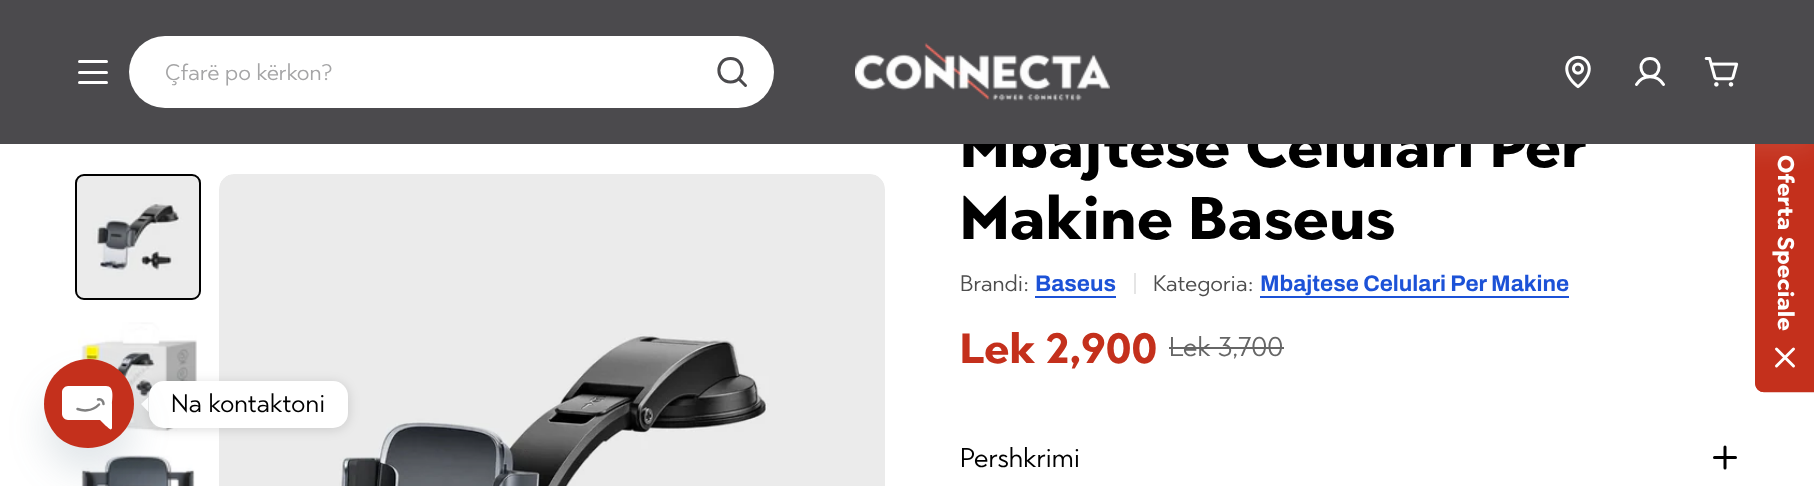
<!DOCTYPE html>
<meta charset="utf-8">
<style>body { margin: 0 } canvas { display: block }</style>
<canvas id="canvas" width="1814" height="486"></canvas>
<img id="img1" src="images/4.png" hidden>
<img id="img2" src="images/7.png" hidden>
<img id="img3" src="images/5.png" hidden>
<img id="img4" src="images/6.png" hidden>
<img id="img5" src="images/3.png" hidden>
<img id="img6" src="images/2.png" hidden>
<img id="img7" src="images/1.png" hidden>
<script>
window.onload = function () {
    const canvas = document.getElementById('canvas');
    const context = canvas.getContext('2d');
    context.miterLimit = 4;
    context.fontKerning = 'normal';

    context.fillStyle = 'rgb(255, 255, 255)';
    context.fillRect(0, 0, 1814, 486);
    context.drawImage(document.getElementById('img1'), 75, 174, 126, 126);
    context.beginPath();
    context.roundRect(76, 175, 124, 124, 8);
    context.strokeStyle = 'rgb(0, 0, 0)';
    context.lineWidth = 2;
    context.stroke();
    context.drawImage(document.getElementById('img2'), 219, 174, 666, 312);
    context.fillStyle = 'rgb(196, 48, 28)';
    context.beginPath();
    context.moveTo(1755, 383);
    context.lineTo(1755, 103);
    context.bezierCurveTo(1755, 98, 1759, 94, 1764, 94);
    context.lineTo(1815, 94);
    context.lineTo(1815, 392);
    context.lineTo(1764, 392);
    context.bezierCurveTo(1759, 392, 1755, 388, 1755, 383);
    context.closePath();
    context.fill();
    context.beginPath();
    context.moveTo(1756, 383.5);
    context.lineTo(1756, 102.5);
    context.bezierCurveTo(1756, 98, 1759.5, 94.5, 1764, 94.5);
    context.lineTo(1814, 94.5);
    context.lineTo(1814, 391.5);
    context.lineTo(1764, 391.5);
    context.bezierCurveTo(1759.5, 391.5, 1756, 388, 1756, 383.5);
    context.closePath();
    context.strokeStyle = 'rgb(196, 48, 28)';
    context.lineWidth = 1.5;
    context.stroke();
    context.fillStyle = 'rgba(255, 255, 255, 0.1)';
    context.filter = 'blur(13.5px)';
    context.beginPath();
    context.rect(0, 6, 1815, 144);
    context.fill();
    context.filter = 'none';
    context.drawImage(document.getElementById('img3'), 78, 322, 119, 109);
    context.drawImage(document.getElementById('img4'), 81, 455, 114, 31);
    context.fillStyle = 'rgb(28, 82, 215)';
    context.fillRect(1035, 296, 81, 2);
    context.fillStyle = 'rgb(229, 229, 229)';
    context.fillRect(1134, 273, 2, 21);
    context.fillStyle = 'rgb(28, 82, 215)';
    context.fillRect(1260, 296, 309, 2);
    context.fillStyle = 'rgb(102, 102, 102)';
    context.fillRect(1169, 347, 115, 2);
    context.beginPath();
    context.moveTo(1714.5, 457.5);
    context.lineTo(1735.5, 457.5);
    context.moveTo(1725, 447);
    context.lineTo(1725, 468);
    context.strokeStyle = 'rgb(0, 0, 0)';
    context.lineWidth = 3;
    context.lineCap = 'round';
    context.lineJoin = 'round';
    context.stroke();
    context.beginPath();
    context.moveTo(1793.5, 366);
    context.lineTo(1776.5, 349);
    context.moveTo(1776.5, 366);
    context.lineTo(1793.5, 349);
    context.strokeStyle = 'rgb(255, 255, 255)';
    context.stroke();
    context.fillStyle = 'rgba(0, 0, 0, 0.15)';
    context.filter = 'blur(6px)';
    context.beginPath();
    context.roundRect(149, 383, 199, 46, 15);
    context.fill();
    context.filter = 'none';
    context.fillStyle = 'rgb(255, 255, 255)';
    context.beginPath();
    context.roundRect(149, 381, 199, 47, 15);
    context.fill();
    context.beginPath();
    context.moveTo(148.5, 397);
    context.lineTo(148.5, 412);
    context.lineTo(141, 404);
    context.closePath();
    context.fill();
    context.fillStyle = 'rgba(73, 104, 126, 0.16)';
    context.filter = 'blur(18px)';
    context.beginPath();
    context.roundRect(44, 383, 90, 90, 45);
    context.fill();
    context.filter = 'none';
    context.fillStyle = 'rgb(196, 48, 28)';
    context.beginPath();
    context.moveTo(89, 359);
    context.bezierCurveTo(101, 359, 112, 364, 121, 372);
    context.bezierCurveTo(129, 380, 134, 391, 134, 404);
    context.bezierCurveTo(134, 428, 113, 448, 88, 448);
    context.bezierCurveTo(76, 448, 65, 444, 57, 436);
    context.bezierCurveTo(49, 427, 44, 416, 44, 404);
    context.bezierCurveTo(44, 379, 64, 359, 89, 359);
    context.closePath();
    context.fill();
    context.fillStyle = 'rgb(255, 255, 255)';
    context.beginPath();
    context.moveTo(106, 386);
    context.lineTo(68, 386);
    context.bezierCurveTo(65, 386, 62, 389, 62, 392);
    context.lineTo(62, 414);
    context.bezierCurveTo(62, 417, 65, 420, 68, 420);
    context.lineTo(100, 420);
    context.lineTo(106, 426);
    context.bezierCurveTo(107, 426, 111, 432, 112, 428);
    context.lineTo(112, 404);
    context.bezierCurveTo(112, 399, 115, 386, 106, 386);
    context.closePath();
    context.fill();
    context.beginPath();
    context.moveTo(77.5, 409);
    context.bezierCurveTo(81.5, 410.5, 91.5, 412.5, 99, 404.5);
    context.moveTo(103.5, 404);
    context.bezierCurveTo(103.5, 402, 102, 398.5, 98, 399.5);
    context.strokeStyle = 'rgb(128, 128, 128)';
    context.lineWidth = 2.5;
    context.stroke();
    context.font = 'bold 60px "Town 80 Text"';
    context.fillStyle = 'rgb(0, 0, 0)';
    context.fillText('Mbajtese Celulari Per', 960, 167);
    context.fillStyle = 'rgb(75, 74, 77)';
    context.fillRect(0, 0, 1814, 144);
    context.fillStyle = 'rgb(255, 255, 255)';
    context.beginPath();
    context.roundRect(129, 36, 645, 72, 36);
    context.fill();
    context.beginPath();
    context.moveTo(730.5, 82);
    context.bezierCurveTo(746, 82, 746, 58.5, 730.5, 58.5);
    context.bezierCurveTo(715, 58.5, 715, 82, 730.5, 82);
    context.closePath();
    context.moveTo(738.5, 78.5);
    context.lineTo(745.5, 85.5);
    context.strokeStyle = 'rgb(75, 74, 77)';
    context.lineWidth = 3;
    context.stroke();
    context.font = '22.5px "Town 80 Text"';
    context.fillStyle = 'rgb(165, 165, 166)';
    context.fillText('Çfarë po kërkon?', 165, 80);
    context.fillStyle = 'rgb(255, 255, 255)';
    context.beginPath();
    context.roundRect(78, 81, 30, 3, 1.5);
    context.fill();
    context.beginPath();
    context.roundRect(78, 60, 30, 3, 1.5);
    context.fill();
    context.beginPath();
    context.roundRect(78, 71, 30, 3, 1.5);
    context.fill();
    context.drawImage(document.getElementById('img5'), 1704, 57, 35, 30);
    context.beginPath();
    context.moveTo(1650, 76.5);
    context.bezierCurveTo(1662, 76.5, 1662, 58.5, 1650, 58.5);
    context.bezierCurveTo(1638, 58.5, 1638, 76.5, 1650, 76.5);
    context.closePath();
    context.moveTo(1636.5, 84.5);
    context.bezierCurveTo(1642.5, 74, 1657.5, 74, 1663.5, 84.5);
    context.strokeStyle = 'rgb(255, 255, 255)';
    context.stroke();
    context.drawImage(document.getElementById('img6'), 1565, 55, 26, 34);
    context.drawImage(document.getElementById('img7'), 855, 43, 255, 58);
    context.font = 'bold 60px "Town 80 Text"';
    context.fillStyle = 'rgb(0, 0, 0)';
    context.fillText('Makine Baseus', 960, 239);
    context.font = '22.5px "Town 80 Text"';
    context.fillStyle = 'rgb(77, 77, 77)';
    context.fillText('Brandi:', 960, 291);
    context.font = 'bold 22.5px Archivo';
    context.fillStyle = 'rgb(28, 82, 215)';
    context.fillText('Baseus', 1035, 291);
    context.font = '22.5px "Town 80 Text"';
    context.fillStyle = 'rgb(77, 77, 77)';
    context.fillText('Kategoria:', 1153, 291);
    context.font = 'bold 22.5px Archivo';
    context.fillStyle = 'rgb(28, 82, 215)';
    context.fillText('Mbajtese Celulari Per Makine', 1260, 291);
    context.font = 'bold 42px "Town 80 Text"';
    context.fillStyle = 'rgb(196, 48, 28)';
    context.fillText('Lek 2,900', 960, 363);
    context.font = '27px "Town 80 Text"';
    context.fillStyle = 'rgb(102, 102, 102)';
    context.fillText('Lek 3,700', 1169, 356);
    context.fillStyle = 'rgb(0, 0, 0)';
    context.fillText('Pershkrimi', 960, 467);
    context.font = 'bold 22.5px "Town 80 Text"';
    context.fillStyle = 'rgb(255, 255, 255)';
    context.save();
    context.translate(1778, 155);
    context.rotate(90 * Math.PI / 180);
    context.fillText('Oferta Speciale', 0, 0);
    context.restore();
    context.font = '25.5px "Town 80 Text"';
    context.fillStyle = 'rgb(0, 0, 0)';
    context.fillText('Na kontaktoni', 171, 412);
};
</script>
